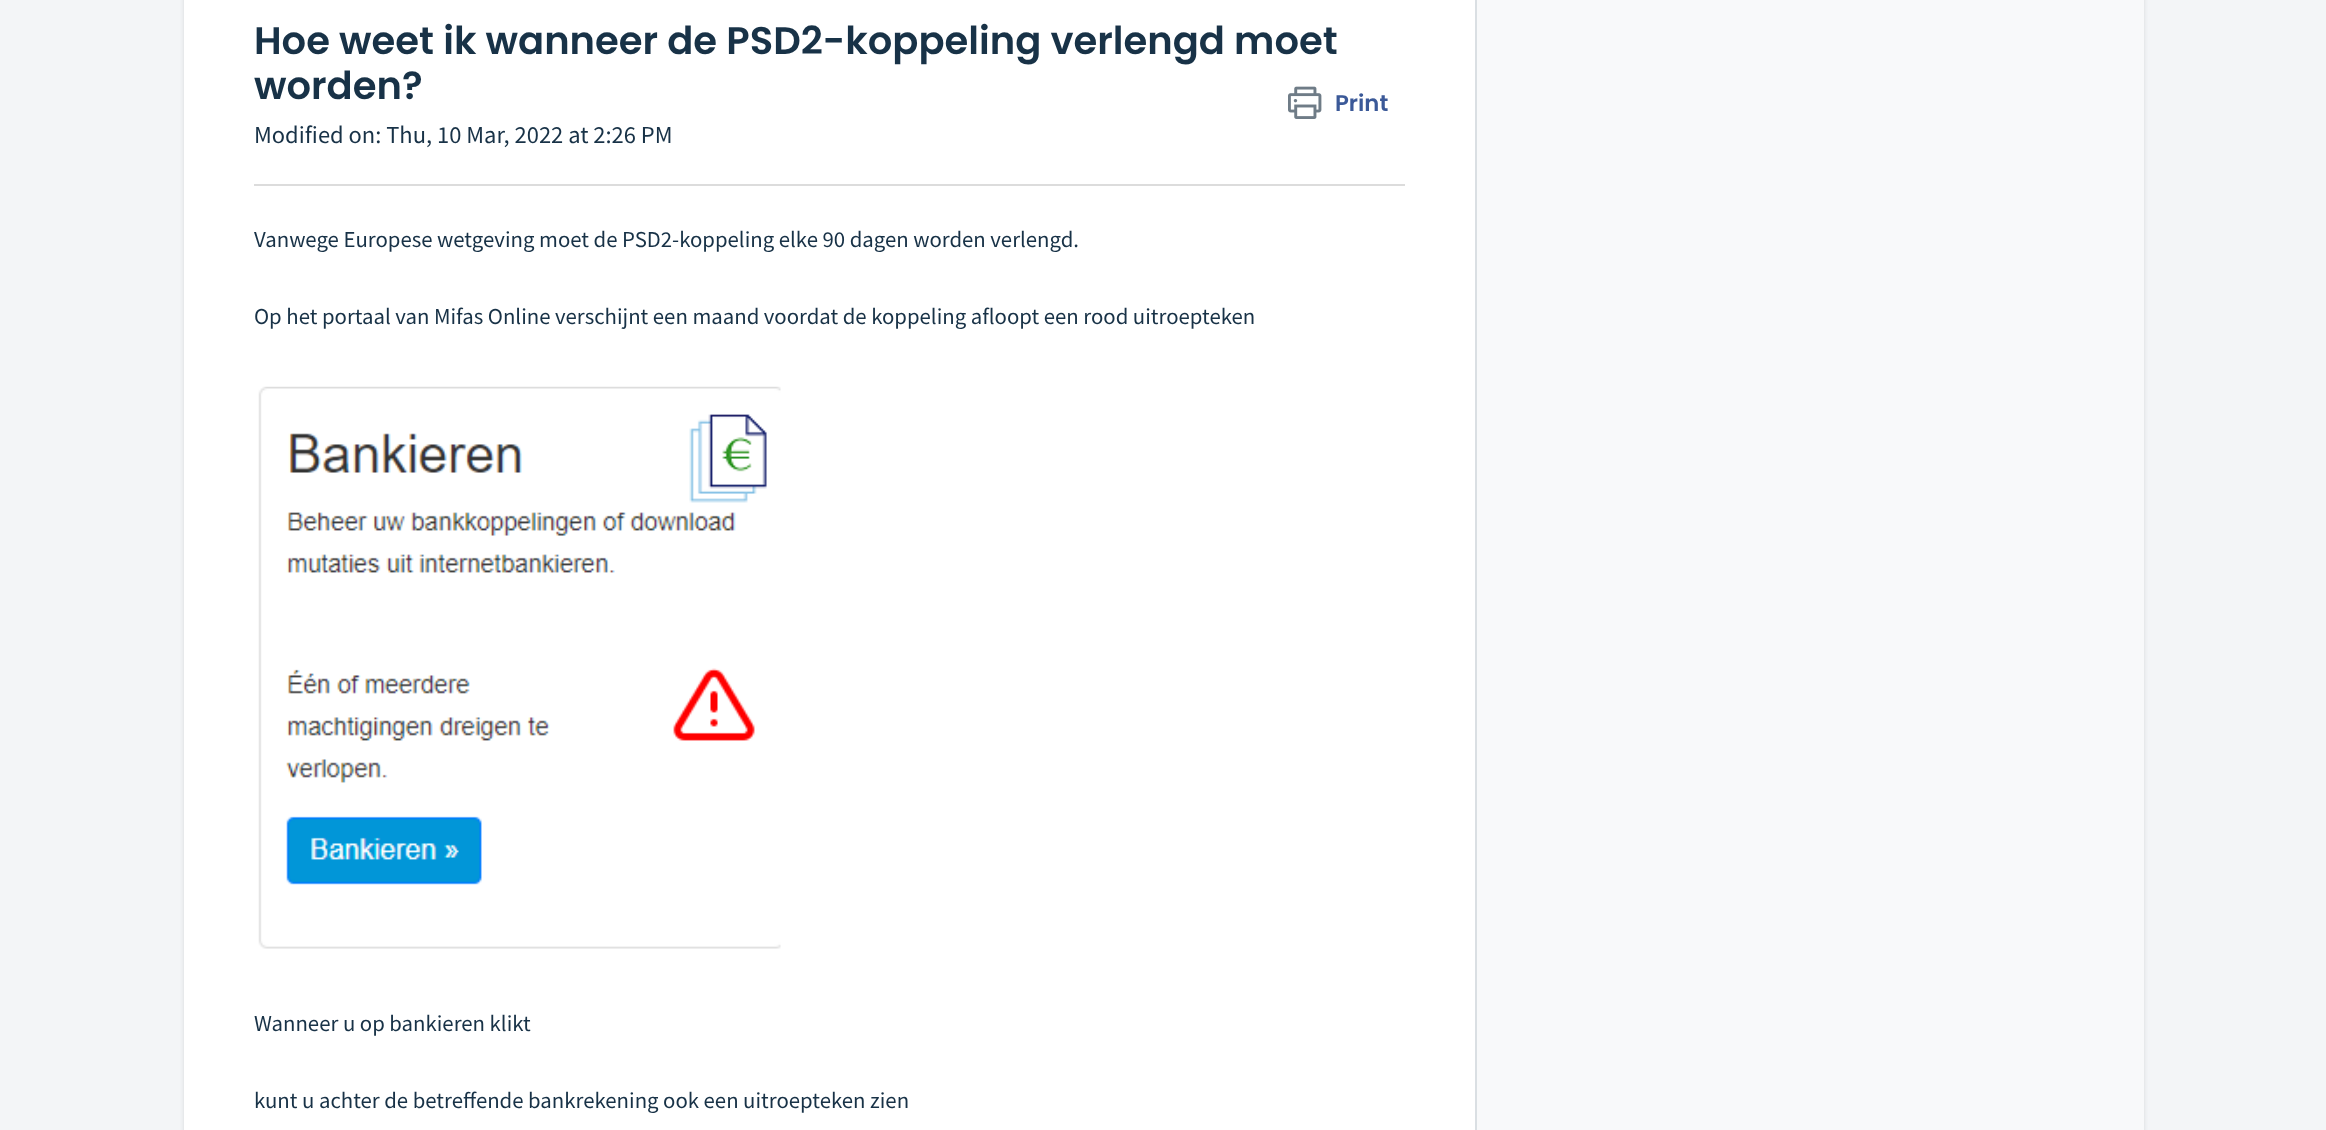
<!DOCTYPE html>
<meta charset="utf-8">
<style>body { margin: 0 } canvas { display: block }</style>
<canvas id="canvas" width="2326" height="1130"></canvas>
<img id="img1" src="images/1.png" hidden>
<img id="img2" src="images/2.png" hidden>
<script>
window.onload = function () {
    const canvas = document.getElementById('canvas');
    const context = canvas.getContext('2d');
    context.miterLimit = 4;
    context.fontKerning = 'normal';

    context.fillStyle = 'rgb(243, 245, 247)';
    context.fillRect(0, 0, 2326, 1130);
    context.fillStyle = 'rgba(63, 63, 68, 0.15)';
    context.filter = 'blur(2px)';
    context.beginPath();
    context.roundRect(184, -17, 1960, 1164, 11);
    context.fill();
    context.filter = 'none';
    context.fillStyle = 'rgb(248, 249, 250)';
    context.fillRect(1477, 0, 667, 1130);
    context.fillStyle = 'rgb(255, 255, 255)';
    context.fillRect(184, 0, 1291, 1130);
    context.fillStyle = 'rgb(218, 223, 227)';
    context.fillRect(1475, 0, 2, 1130);
    context.drawImage(document.getElementById('img1'), 1288, 86, 34, 33);
    context.fillStyle = 'rgb(220, 220, 220)';
    context.fillRect(254, 184, 1151, 2);
    context.drawImage(document.getElementById('img2'), 258, 386, 523, 563);
    context.font = '600 38.5px Poppins';
    context.fillStyle = 'rgb(24, 50, 71)';
    context.fillText('Hoe weet ik wanneer de PSD2-koppeling verlengd moet', 254, 54);
    context.fillText('worden?', 254, 99);
    context.font = '600 22.75px Poppins';
    context.fillStyle = 'rgb(59, 89, 152)';
    context.fillText('Print', 1335, 111);
    context.font = '24.5px Source Sans Pro';
    context.fillStyle = 'rgb(24, 50, 71)';
    context.fillText('Modified on: Thu, 10 Mar, 2022 at 2:26 PM', 254, 143);
    context.font = '22.75px Source Sans Pro';
    context.fillText('Vanwege Europese wetgeving moet de PSD2-koppeling elke 90 dagen worden verlengd.', 254, 247);
    context.fillText('Op het portaal van Mifas Online verschijnt een maand voordat de koppeling afloopt een rood uitroepteken', 254, 324);
    context.fillText('Wanneer u op bankieren klikt', 254, 1031);
    context.fillText('kunt u achter de betreffende bankrekening ook een uitroepteken zien', 254, 1108);
};
</script>
